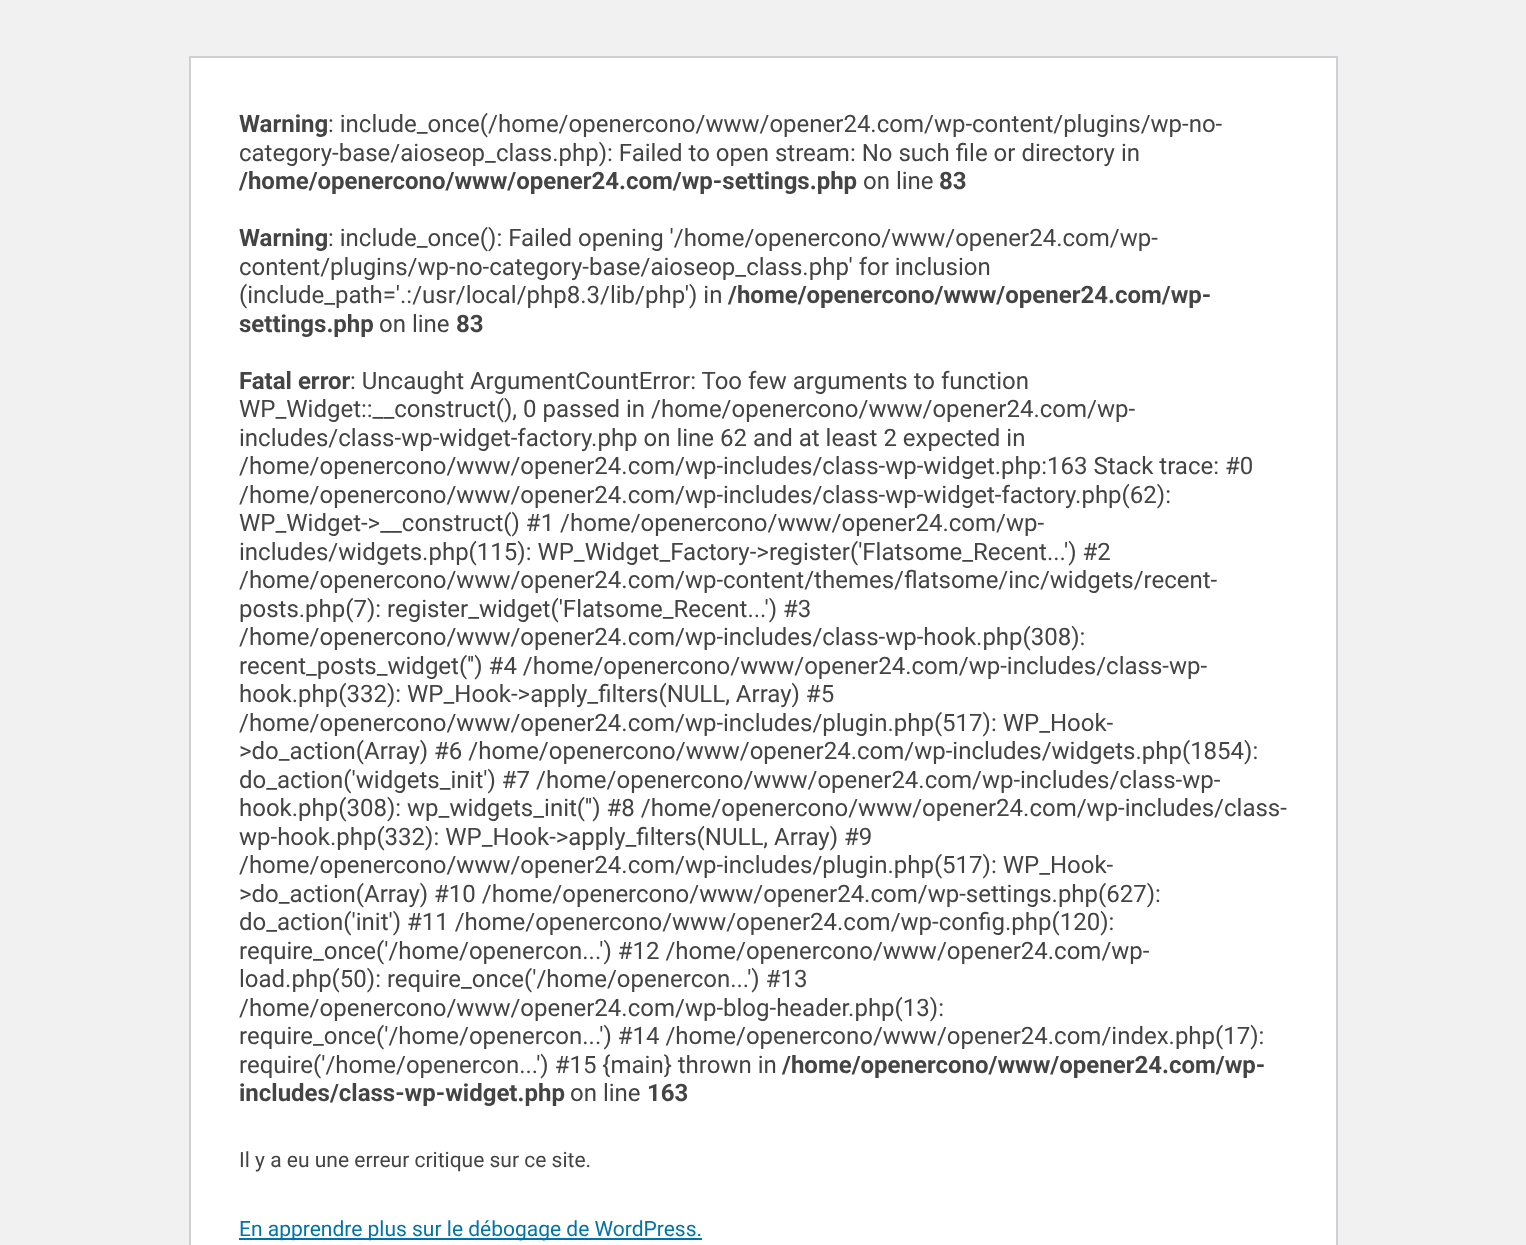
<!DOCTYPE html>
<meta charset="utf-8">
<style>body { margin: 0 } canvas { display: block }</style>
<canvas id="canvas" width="1526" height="1245"></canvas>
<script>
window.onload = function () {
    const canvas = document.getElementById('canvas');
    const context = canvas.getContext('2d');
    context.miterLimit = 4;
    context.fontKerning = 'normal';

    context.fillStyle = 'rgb(241, 241, 241)';
    context.fillRect(0, 0, 1526, 1245);
    context.fillStyle = 'rgb(255, 255, 255)';
    context.beginPath();
    context.rect(190, 57, 1147, 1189);
    context.fill();
    context.strokeStyle = 'rgb(204, 208, 212)';
    context.lineWidth = 2;
    context.stroke();
    context.fillStyle = 'rgb(0, 115, 170)';
    context.fillRect(239, 1238, 463, 2);
    context.font = 'bold 24px Roboto';
    context.fillStyle = 'rgb(68, 68, 68)';
    context.fillText('Warning', 239, 132);
    context.font = '24px Roboto';
    context.fillText(': include_once(/home/openercono/www/opener24.com/wp-content/plugins/wp-no-', 328, 132);
    context.fillText('category-base/aioseop_class.php): Failed to open stream: No such file or directory in', 239, 161);
    context.font = 'bold 24px Roboto';
    context.fillText('/home/openercono/www/opener24.com/wp-settings.php', 239, 189);
    context.font = '24px Roboto';
    context.fillText('on line', 863, 189);
    context.font = 'bold 24px Roboto';
    context.fillText('83', 939, 189);
    context.fillText('Warning', 239, 246);
    context.font = '24px Roboto';
    context.fillText(': include_once(): Failed opening \'/home/openercono/www/opener24.com/wp-', 328, 246);
    context.fillText('content/plugins/wp-no-category-base/aioseop_class.php\' for inclusion', 239, 275);
    context.fillText('(include_path=\'.:/usr/local/php8.3/lib/php\') in', 239, 303);
    context.font = 'bold 24px Roboto';
    context.fillText('/home/openercono/www/opener24.com/wp-', 728, 303);
    context.fillText('settings.php', 239, 332);
    context.font = '24px Roboto';
    context.fillText('on line', 379, 332);
    context.font = 'bold 24px Roboto';
    context.fillText('83', 456, 332);
    context.fillText('Fatal error', 239, 389);
    context.font = '24px Roboto';
    context.fillText(': Uncaught ArgumentCountError: Too few arguments to function', 350, 389);
    context.fillText('WP_Widget::__construct(), 0 passed in /home/openercono/www/opener24.com/wp-', 239, 417);
    context.fillText('includes/class-wp-widget-factory.php on line 62 and at least 2 expected in', 239, 446);
    context.fillText('/home/openercono/www/opener24.com/wp-includes/class-wp-widget.php:163 Stack trace: #0', 239, 474);
    context.fillText('/home/openercono/www/opener24.com/wp-includes/class-wp-widget-factory.php(62):', 239, 503);
    context.fillText('WP_Widget->__construct() #1 /home/openercono/www/opener24.com/wp-', 239, 531);
    context.fillText('includes/widgets.php(115): WP_Widget_Factory->register(\'Flatsome_Recent...\') #2', 239, 560);
    context.fillText('/home/openercono/www/opener24.com/wp-content/themes/flatsome/inc/widgets/recent-', 239, 588);
    context.fillText('posts.php(7): register_widget(\'Flatsome_Recent...\') #3', 239, 617);
    context.fillText('/home/openercono/www/opener24.com/wp-includes/class-wp-hook.php(308):', 239, 645);
    context.fillText('recent_posts_widget(\'\') #4 /home/openercono/www/opener24.com/wp-includes/class-wp-', 239, 674);
    context.fillText('hook.php(332): WP_Hook->apply_filters(NULL, Array) #5', 239, 702);
    context.fillText('/home/openercono/www/opener24.com/wp-includes/plugin.php(517): WP_Hook-', 239, 731);
    context.fillText('>do_action(Array) #6 /home/openercono/www/opener24.com/wp-includes/widgets.php(1854):', 239, 759);
    context.fillText('do_action(\'widgets_init\') #7 /home/openercono/www/opener24.com/wp-includes/class-wp-', 239, 788);
    context.fillText('hook.php(308): wp_widgets_init(\'\') #8 /home/openercono/www/opener24.com/wp-includes/class-', 239, 816);
    context.fillText('wp-hook.php(332): WP_Hook->apply_filters(NULL, Array) #9', 239, 845);
    context.fillText('/home/openercono/www/opener24.com/wp-includes/plugin.php(517): WP_Hook-', 239, 873);
    context.fillText('>do_action(Array) #10 /home/openercono/www/opener24.com/wp-settings.php(627):', 239, 902);
    context.fillText('do_action(\'init\') #11 /home/openercono/www/opener24.com/wp-config.php(120):', 239, 930);
    context.fillText('require_once(\'/home/openercon...\') #12 /home/openercono/www/opener24.com/wp-', 239, 959);
    context.fillText('load.php(50): require_once(\'/home/openercon...\') #13', 239, 987);
    context.fillText('/home/openercono/www/opener24.com/wp-blog-header.php(13):', 239, 1016);
    context.fillText('require_once(\'/home/openercon...\') #14 /home/openercono/www/opener24.com/index.php(17):', 239, 1044);
    context.fillText('require(\'/home/openercon...\') #15 {main} thrown in', 239, 1073);
    context.font = 'bold 24px Roboto';
    context.fillText('/home/openercono/www/opener24.com/wp-', 782, 1073);
    context.fillText('includes/class-wp-widget.php', 239, 1101);
    context.font = '24px Roboto';
    context.fillText('on line', 570, 1101);
    context.font = 'bold 24px Roboto';
    context.fillText('163', 647, 1101);
    context.font = '21px Roboto';
    context.fillText('Il y a eu une erreur critique sur ce site.', 239, 1167);
    context.fillStyle = 'rgb(0, 115, 170)';
    context.fillText('En apprendre plus sur le débogage de WordPress.', 239, 1236);
};
</script>
